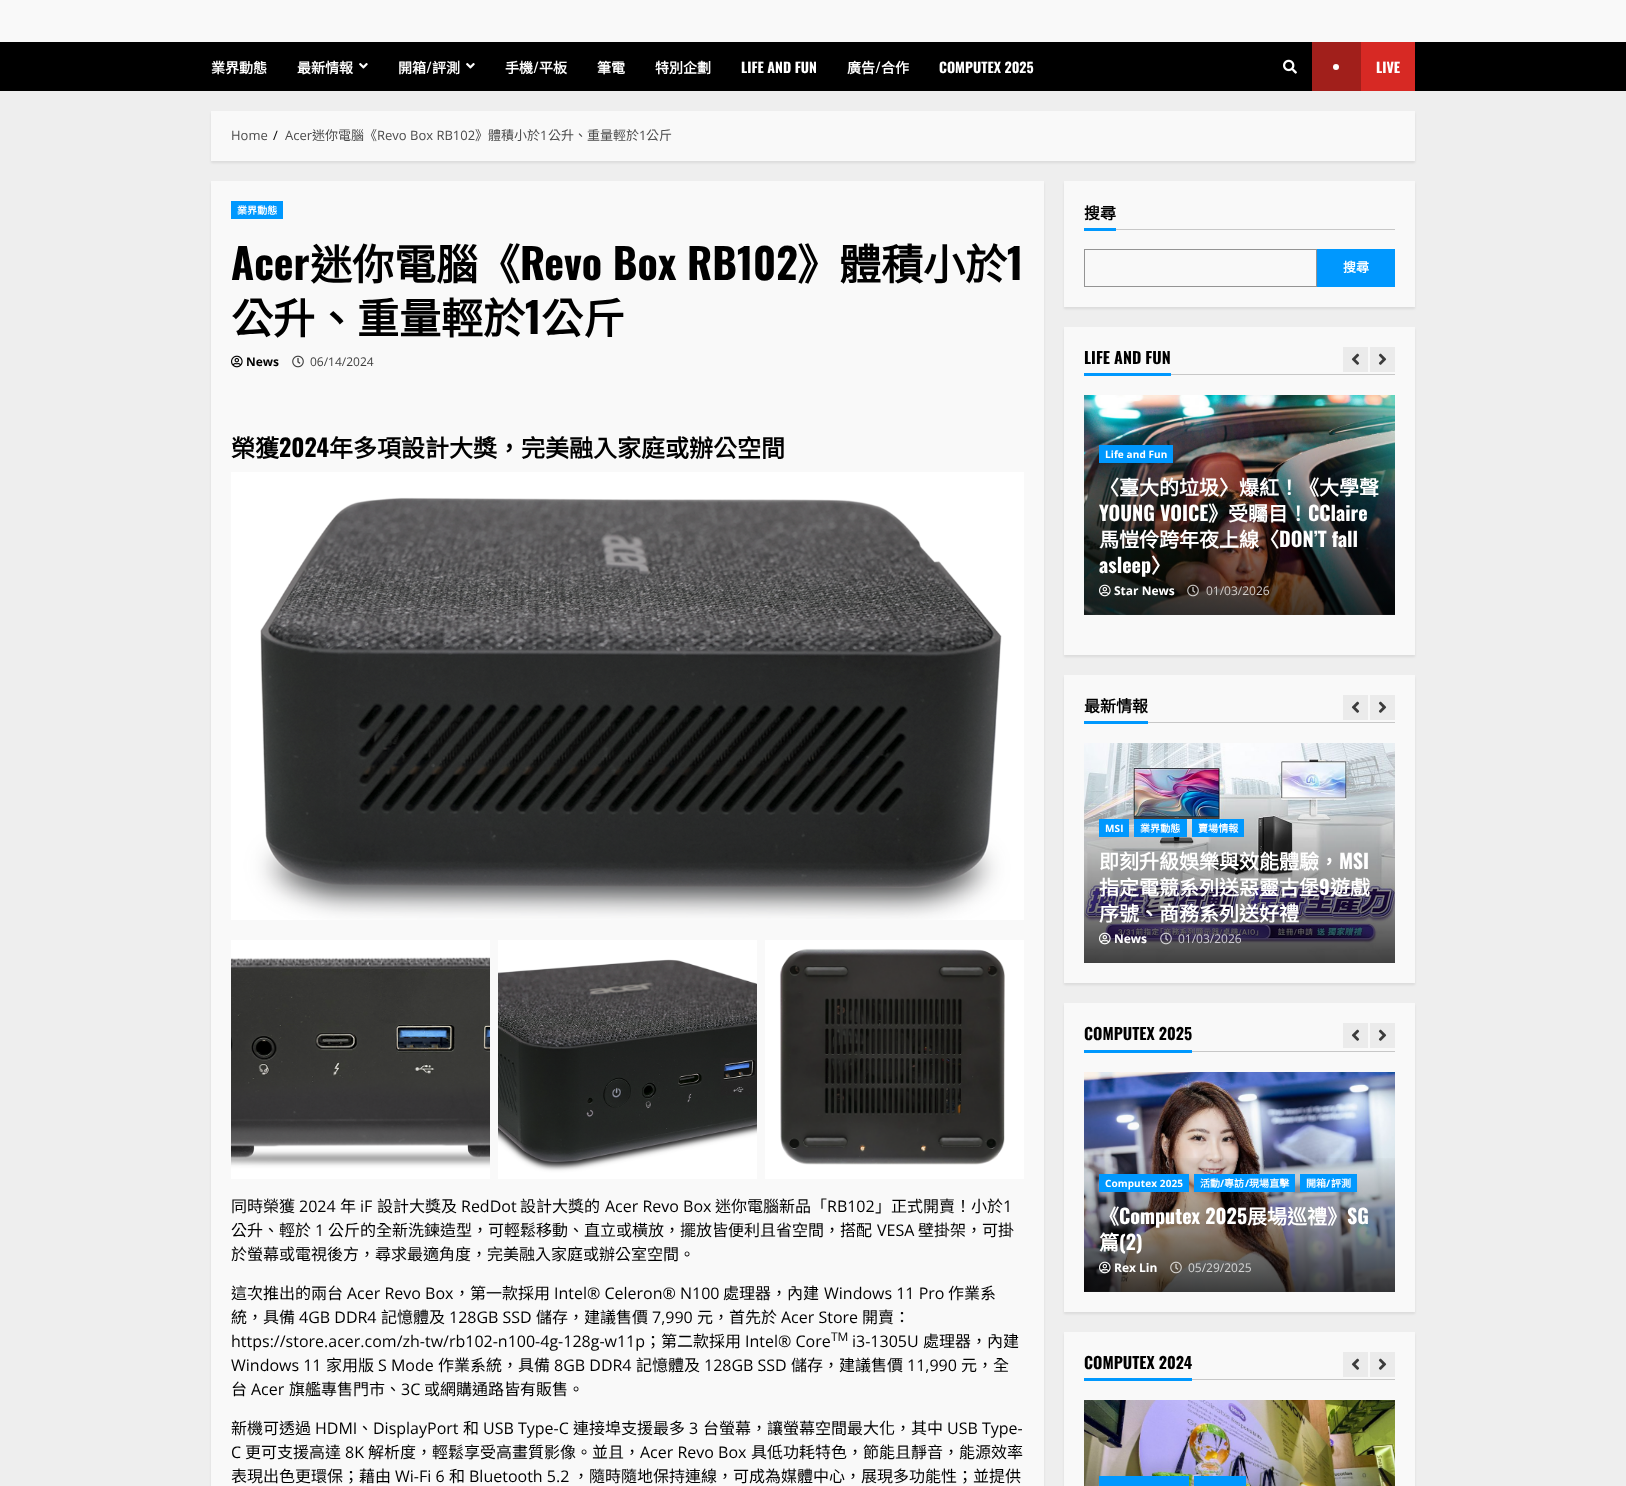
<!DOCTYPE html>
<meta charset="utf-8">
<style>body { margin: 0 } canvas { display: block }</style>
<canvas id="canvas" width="1626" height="1486"></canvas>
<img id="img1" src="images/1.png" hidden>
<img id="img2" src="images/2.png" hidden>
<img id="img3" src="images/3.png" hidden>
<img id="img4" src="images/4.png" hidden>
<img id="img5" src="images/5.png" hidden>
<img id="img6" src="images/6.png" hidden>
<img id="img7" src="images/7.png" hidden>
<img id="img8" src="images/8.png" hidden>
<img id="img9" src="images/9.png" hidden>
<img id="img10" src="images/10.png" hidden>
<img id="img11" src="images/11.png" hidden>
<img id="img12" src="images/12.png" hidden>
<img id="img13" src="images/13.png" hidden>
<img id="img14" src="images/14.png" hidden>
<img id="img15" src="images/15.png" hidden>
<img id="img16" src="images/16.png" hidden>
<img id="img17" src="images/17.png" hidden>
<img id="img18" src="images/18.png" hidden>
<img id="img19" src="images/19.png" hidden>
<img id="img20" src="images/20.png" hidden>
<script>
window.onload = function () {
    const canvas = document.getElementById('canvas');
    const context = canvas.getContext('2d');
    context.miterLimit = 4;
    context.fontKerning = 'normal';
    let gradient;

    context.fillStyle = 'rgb(238, 238, 238)';
    context.fillRect(0, 0, 1626, 1486);
    context.fillStyle = 'rgb(249, 249, 249)';
    context.fillRect(0, 0, 1626, 42);
    context.fillStyle = 'rgb(0, 0, 0)';
    context.fillRect(0, 42, 1626, 49);
    context.drawImage(document.getElementById('img1'), 359, 63, 9, 6);
    context.drawImage(document.getElementById('img1'), 466, 63, 9, 6);
    context.drawImage(document.getElementById('img2'), 1283, 59, 14, 15);
    context.fillStyle = 'rgb(215, 41, 36)';
    context.fillRect(1361, 42, 54, 49);
    context.fillStyle = 'rgb(161, 31, 27)';
    context.fillRect(1312, 42, 49, 49);
    context.fillStyle = 'rgb(255, 255, 255)';
    context.beginPath();
    context.arc(1336, 67, 3, 0, 2 * Math.PI);
    context.fill();
    context.fillStyle = 'rgba(0, 0, 0, 0.08)';
    context.filter = 'blur(1px)';
    context.beginPath();
    context.rect(211, 113, 1204, 50);
    context.fill();
    context.filter = 'none';
    context.fillStyle = 'rgb(249, 249, 249)';
    context.fillRect(211, 111, 1204, 50);
    context.fillStyle = 'rgba(0, 0, 0, 0.08)';
    context.filter = 'blur(1px)';
    context.beginPath();
    context.rect(211, 183, 833, 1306);
    context.fill();
    context.filter = 'none';
    context.fillStyle = 'rgb(249, 249, 249)';
    context.fillRect(211, 181, 833, 1305);
    context.fillStyle = 'rgb(0, 152, 254)';
    context.fillRect(231, 201, 52, 18);
    context.drawImage(document.getElementById('img3'), 231, 355, 12, 13);
    context.drawImage(document.getElementById('img4'), 292, 355, 12, 13);
    context.drawImage(document.getElementById('img5'), 231, 472, 793, 448);
    context.drawImage(document.getElementById('img6'), 231, 940, 259, 239);
    context.drawImage(document.getElementById('img7'), 498, 940, 259, 239);
    context.drawImage(document.getElementById('img8'), 765, 940, 259, 239);
    context.fillStyle = 'rgba(0, 0, 0, 0.08)';
    context.filter = 'blur(1px)';
    context.beginPath();
    context.rect(1064, 183, 351, 126);
    context.fill();
    context.filter = 'none';
    context.fillStyle = 'rgb(249, 249, 249)';
    context.fillRect(1064, 181, 351, 126);
    context.fillStyle = 'rgb(0, 152, 254)';
    context.fillRect(1084, 228, 32, 3);
    context.fillStyle = 'rgb(199, 199, 199)';
    context.fillRect(1116, 229, 279, 1);
    context.strokeStyle = 'rgb(148, 148, 148)';
    context.strokeRect(1084.5, 249.5, 232, 37);
    context.fillStyle = 'rgb(0, 152, 254)';
    context.fillRect(1317, 249, 78, 38);
    context.fillStyle = 'rgba(0, 0, 0, 0.08)';
    context.filter = 'blur(1px)';
    context.beginPath();
    context.rect(1064, 329, 351, 328);
    context.fill();
    context.filter = 'none';
    context.fillStyle = 'rgb(249, 249, 249)';
    context.fillRect(1064, 327, 351, 328);
    context.fillStyle = 'rgb(199, 199, 199)';
    context.fillRect(1171, 374, 224, 1);
    context.fillStyle = 'rgb(0, 152, 254)';
    context.fillRect(1084, 373, 87, 3);
    context.fillStyle = 'rgb(235, 235, 235)';
    context.fillRect(1343, 347, 25, 25);
    context.drawImage(document.getElementById('img9'), 1351, 353, 9, 12);
    context.fillRect(1370, 347, 25, 25);
    context.drawImage(document.getElementById('img10'), 1378, 353, 9, 12);
    context.drawImage(document.getElementById('img11'), 1084, 395, 311, 220);
    gradient = context.createLinearGradient(1240, 425, 1240, 615);
    gradient.addColorStop(0, 'rgba(0, 0, 0, 0)');
    gradient.addColorStop(1, 'rgba(0, 0, 0, 0.75)');
    context.fillStyle = gradient;
    context.fillRect(1084, 430, 311, 185);
    context.fillStyle = 'rgb(0, 152, 254)';
    context.fillRect(1099, 445, 74, 18);
    context.drawImage(document.getElementById('img12'), 1099, 584, 12, 13);
    context.drawImage(document.getElementById('img13'), 1187, 584, 12, 13);
    context.fillStyle = 'rgba(0, 0, 0, 0.08)';
    context.filter = 'blur(1px)';
    context.beginPath();
    context.rect(1064, 677, 351, 308);
    context.fill();
    context.filter = 'none';
    context.fillStyle = 'rgb(249, 249, 249)';
    context.fillRect(1064, 675, 351, 308);
    context.fillStyle = 'rgb(199, 199, 199)';
    context.fillRect(1148, 722, 247, 1);
    context.fillStyle = 'rgb(0, 152, 254)';
    context.fillRect(1084, 721, 64, 3);
    context.fillStyle = 'rgb(235, 235, 235)';
    context.fillRect(1343, 695, 25, 25);
    context.drawImage(document.getElementById('img9'), 1351, 701, 9, 12);
    context.fillRect(1370, 695, 25, 25);
    context.drawImage(document.getElementById('img10'), 1378, 701, 9, 12);
    context.drawImage(document.getElementById('img14'), 1084, 743, 311, 220);
    context.fillStyle = 'rgb(0, 152, 254)';
    context.fillRect(1099, 819, 30, 18);
    context.fillRect(1134, 819, 53, 18);
    context.fillRect(1192, 819, 52, 18);
    context.drawImage(document.getElementById('img15'), 1099, 932, 12, 13);
    context.drawImage(document.getElementById('img16'), 1160, 932, 12, 13);
    context.fillStyle = 'rgba(0, 0, 0, 0.08)';
    context.filter = 'blur(1px)';
    context.beginPath();
    context.rect(1064, 1005, 351, 309);
    context.fill();
    context.filter = 'none';
    context.fillStyle = 'rgb(249, 249, 249)';
    context.fillRect(1064, 1003, 351, 309);
    context.fillStyle = 'rgb(199, 199, 199)';
    context.fillRect(1192, 1051, 203, 1);
    context.fillStyle = 'rgb(0, 152, 254)';
    context.fillRect(1084, 1050, 108, 3);
    context.fillStyle = 'rgb(235, 235, 235)';
    context.fillRect(1343, 1023, 25, 25);
    context.drawImage(document.getElementById('img9'), 1351, 1029, 9, 12);
    context.fillRect(1370, 1023, 25, 25);
    context.drawImage(document.getElementById('img10'), 1378, 1029, 9, 12);
    context.drawImage(document.getElementById('img17'), 1084, 1072, 311, 220);
    gradient = context.createLinearGradient(1240, 1154, 1240, 1292);
    gradient.addColorStop(0, 'rgba(0, 0, 0, 0)');
    gradient.addColorStop(1, 'rgba(0, 0, 0, 0.75)');
    context.fillStyle = gradient;
    context.fillRect(1084, 1158, 311, 134);
    context.fillStyle = 'rgb(0, 152, 254)';
    context.fillRect(1099, 1174, 90, 18);
    context.fillRect(1194, 1174, 101, 18);
    context.fillRect(1300, 1174, 57, 18);
    context.drawImage(document.getElementById('img18'), 1099, 1261, 12, 13);
    context.drawImage(document.getElementById('img19'), 1170, 1261, 12, 13);
    context.fillStyle = 'rgba(0, 0, 0, 0.08)';
    context.filter = 'blur(1px)';
    context.beginPath();
    context.rect(1064, 1334, 351, 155);
    context.fill();
    context.filter = 'none';
    context.fillStyle = 'rgb(249, 249, 249)';
    context.fillRect(1064, 1332, 351, 154);
    context.fillStyle = 'rgb(235, 235, 235)';
    context.fillRect(1343, 1352, 25, 25);
    context.drawImage(document.getElementById('img9'), 1351, 1358, 9, 12);
    context.fillRect(1370, 1352, 25, 25);
    context.drawImage(document.getElementById('img10'), 1378, 1358, 9, 12);
    context.drawImage(document.getElementById('img20'), 1084, 1400, 311, 86);
    context.fillStyle = 'rgb(0, 152, 254)';
    context.fillRect(1099, 1476, 90, 10);
    context.fillRect(1194, 1476, 52, 10);
    context.fillStyle = 'rgb(199, 199, 199)';
    context.fillRect(1192, 1379, 203, 1);
    context.fillStyle = 'rgb(0, 152, 254)';
    context.fillRect(1084, 1378, 108, 3);
    context.font = 'bold 14px Noto Sans CJK TC';
    context.fillStyle = 'rgb(255, 255, 255)';
    context.fillText('業界動態', 211, 73);
    context.fillText('最新情報', 297, 73);
    context.fillText('開箱', 398, 73);
    context.font = 'bold 14px Oswald';
    context.fillText('/', 426, 73);
    context.font = 'bold 14px Noto Sans CJK TC';
    context.fillText('評測', 432, 73);
    context.fillText('手機', 505, 73);
    context.font = 'bold 14px Oswald';
    context.fillText('/', 533, 73);
    context.font = 'bold 14px Noto Sans CJK TC';
    context.fillText('平板', 539, 73);
    context.fillText('筆電', 597, 73);
    context.fillText('特別企劃', 655, 73);
    context.font = 'bold 14px Oswald';
    context.fillText('LIFE AND FUN', 741, 73);
    context.font = 'bold 14px Noto Sans CJK TC';
    context.fillText('廣告', 847, 73);
    context.font = 'bold 14px Oswald';
    context.fillText('/', 875, 73);
    context.font = 'bold 14px Noto Sans CJK TC';
    context.fillText('合作', 881, 73);
    context.font = 'bold 14px Oswald';
    context.fillText('COMPUTEX 2025', 939, 73);
    context.fillText('LIVE', 1376, 73);
    context.font = '13px Open Sans';
    context.fillStyle = 'rgb(75, 75, 75)';
    context.fillText('Home', 231, 140);
    context.fillStyle = 'rgb(0, 0, 0)';
    context.fillText('/', 273, 140);
    context.fillStyle = 'rgb(75, 75, 75)';
    context.fillText('Acer', 285, 140);
    context.font = '13px Noto Sans CJK TC';
    context.fillText('迷你電腦《', 312, 140);
    context.font = '13px Open Sans';
    context.fillText('Revo Box RB102', 377, 140);
    context.font = '13px Noto Sans CJK TC';
    context.fillText('》體積小於', 475, 140);
    context.font = '13px Open Sans';
    context.fillText('1', 540, 140);
    context.font = '13px Noto Sans CJK TC';
    context.fillText('公升、重量輕於', 548, 140);
    context.font = '13px Open Sans';
    context.fillText('1', 639, 140);
    context.font = '13px Noto Sans CJK TC';
    context.fillText('公斤', 646, 140);
    context.letterSpacing = '0.1px';
    context.font = 'bold 10px Noto Sans CJK TC';
    context.fillStyle = 'rgb(255, 255, 255)';
    context.fillText('業界動態', 237, 214);
    context.letterSpacing = '0px';
    context.font = 'bold 42px Oswald';
    context.fillStyle = 'rgb(0, 0, 0)';
    context.fillText('Acer', 231, 280);
    context.font = 'bold 42px Noto Sans CJK TC';
    context.fillText('迷你電腦《', 310, 280);
    context.font = 'bold 42px Oswald';
    context.fillText('Revo Box RB102', 520, 280);
    context.font = 'bold 42px Noto Sans CJK TC';
    context.fillText('》體積小於', 797, 280);
    context.font = 'bold 42px Oswald';
    context.fillText('1', 1007, 280);
    context.font = 'bold 42px Noto Sans CJK TC';
    context.fillText('公升、重量輕於', 231, 334);
    context.font = 'bold 42px Oswald';
    context.fillText('1', 525, 334);
    context.font = 'bold 42px Noto Sans CJK TC';
    context.fillText('公斤', 541, 334);
    context.font = 'bold 12px Open Sans';
    context.fillText('News', 246, 366);
    context.font = '12px Open Sans';
    context.fillStyle = 'rgb(62, 62, 62)';
    context.fillText('06/14/2024', 310, 366);
    context.font = 'bold 24px Noto Sans CJK TC';
    context.fillStyle = 'rgb(0, 0, 0)';
    context.fillText('榮獲', 231, 457);
    context.font = 'bold 24px Oswald';
    context.fillText('2024', 279, 457);
    context.font = 'bold 24px Noto Sans CJK TC';
    context.fillText('年多項設計大獎，完美融入家庭或辦公空間', 329, 457);
    context.font = '16px Noto Sans CJK TC';
    context.fillText('同時榮獲', 231, 1212);
    context.font = '16px Open Sans';
    context.fillText('2024', 299, 1212);
    context.font = '16px Noto Sans CJK TC';
    context.fillText('年', 340, 1212);
    context.font = '16px Open Sans';
    context.fillText('iF', 360, 1212);
    context.font = '16px Noto Sans CJK TC';
    context.fillText('設計大獎及', 377, 1212);
    context.font = '16px Open Sans';
    context.fillText('RedDot', 461, 1212);
    context.font = '16px Noto Sans CJK TC';
    context.fillText('設計大獎的', 520, 1212);
    context.font = '16px Open Sans';
    context.fillText('Acer Revo Box', 605, 1212);
    context.font = '16px Noto Sans CJK TC';
    context.fillText('迷你電腦新品「', 715, 1212);
    context.font = '16px Open Sans';
    context.fillText('RB102', 827, 1212);
    context.font = '16px Noto Sans CJK TC';
    context.fillText('」正式開賣！小於', 875, 1212);
    context.font = '16px Open Sans';
    context.fillText('1', 1003, 1212);
    context.font = '16px Noto Sans CJK TC';
    context.fillText('公升、輕於', 231, 1236);
    context.font = '16px Open Sans';
    context.fillText('1', 315, 1236);
    context.font = '16px Noto Sans CJK TC';
    context.fillText('公斤的全新洗鍊造型，可輕鬆移動、直立或橫放，擺放皆便利且省空間，搭配', 328, 1236);
    context.font = '16px Open Sans';
    context.fillText('VESA', 877, 1236);
    context.font = '16px Noto Sans CJK TC';
    context.fillText('壁掛架，可掛', 918, 1236);
    context.fillText('於螢幕或電視後方，尋求最適角度，完美融入家庭或辦公室空間。', 231, 1260);
    context.fillText('這次推出的兩台', 231, 1299);
    context.font = '16px Open Sans';
    context.fillText('Acer Revo Box', 347, 1299);
    context.font = '16px Noto Sans CJK TC';
    context.fillText('，第一款採用', 454, 1299);
    context.font = '16px Open Sans';
    context.fillText('Intel® Celeron® N100', 554, 1299);
    context.font = '16px Noto Sans CJK TC';
    context.fillText('處理器，內建', 723, 1299);
    context.font = '16px Open Sans';
    context.fillText('Windows 11 Pro', 824, 1299);
    context.font = '16px Noto Sans CJK TC';
    context.fillText('作業系', 948, 1299);
    context.fillText('統，具備', 231, 1323);
    context.font = '16px Open Sans';
    context.fillText('4GB DDR4', 299, 1323);
    context.font = '16px Noto Sans CJK TC';
    context.fillText('記憶體及', 381, 1323);
    context.font = '16px Open Sans';
    context.fillText('128GB SSD', 449, 1323);
    context.font = '16px Noto Sans CJK TC';
    context.fillText('儲存，建議售價', 536, 1323);
    context.font = '16px Open Sans';
    context.fillText('7,990', 652, 1323);
    context.font = '16px Noto Sans CJK TC';
    context.fillText('元，首先於', 697, 1323);
    context.font = '16px Open Sans';
    context.fillText('Acer Store', 781, 1323);
    context.font = '16px Noto Sans CJK TC';
    context.fillText('開賣：', 862, 1323);
    context.font = '16px Open Sans';
    context.fillText('https://store.acer.com/zh-tw/rb102-n100-4g-128g-w11p', 231, 1347);
    context.font = '16px Noto Sans CJK TC';
    context.fillText('；第二款採用', 645, 1347);
    context.font = '16px Open Sans';
    context.fillText('Intel® Core', 745, 1347);
    context.font = '12px Open Sans';
    context.fillText('TM', 831, 1341);
    context.font = '16px Open Sans';
    context.fillText('i3-1305U', 852, 1347);
    context.font = '16px Noto Sans CJK TC';
    context.fillText('處理器，內建', 923, 1347);
    context.font = '16px Open Sans';
    context.fillText('Windows 11', 231, 1371);
    context.font = '16px Noto Sans CJK TC';
    context.fillText('家用版', 326, 1371);
    context.font = '16px Open Sans';
    context.fillText('S Mode', 378, 1371);
    context.font = '16px Noto Sans CJK TC';
    context.fillText('作業系統，具備', 438, 1371);
    context.font = '16px Open Sans';
    context.fillText('8GB DDR4', 554, 1371);
    context.font = '16px Noto Sans CJK TC';
    context.fillText('記憶體及', 636, 1371);
    context.font = '16px Open Sans';
    context.fillText('128GB SSD', 704, 1371);
    context.font = '16px Noto Sans CJK TC';
    context.fillText('儲存，建議售價', 791, 1371);
    context.font = '16px Open Sans';
    context.fillText('11,990', 907, 1371);
    context.font = '16px Noto Sans CJK TC';
    context.fillText('元，全', 961, 1371);
    context.fillText('台', 231, 1395);
    context.font = '16px Open Sans';
    context.fillText('Acer', 251, 1395);
    context.font = '16px Noto Sans CJK TC';
    context.fillText('旗艦專售門市、', 289, 1395);
    context.font = '16px Open Sans';
    context.fillText('3C', 401, 1395);
    context.font = '16px Noto Sans CJK TC';
    context.fillText('或網購通路皆有販售。', 424, 1395);
    context.fillText('新機可透過', 231, 1434);
    context.font = '16px Open Sans';
    context.fillText('HDMI', 315, 1434);
    context.font = '16px Noto Sans CJK TC';
    context.fillText('、', 357, 1434);
    context.font = '16px Open Sans';
    context.fillText('DisplayPort', 373, 1434);
    context.font = '16px Noto Sans CJK TC';
    context.fillText('和', 463, 1434);
    context.font = '16px Open Sans';
    context.fillText('USB Type-C', 483, 1434);
    context.font = '16px Noto Sans CJK TC';
    context.fillText('連接埠支援最多', 573, 1434);
    context.font = '16px Open Sans';
    context.fillText('3', 689, 1434);
    context.font = '16px Noto Sans CJK TC';
    context.fillText('台螢幕，讓螢幕空間最大化，其中', 703, 1434);
    context.font = '16px Open Sans';
    context.fillText('USB Type-', 947, 1434);
    context.fillText('C', 231, 1458);
    context.font = '16px Noto Sans CJK TC';
    context.fillText('更可支援高達', 245, 1458);
    context.font = '16px Open Sans';
    context.fillText('8K', 345, 1458);
    context.font = '16px Noto Sans CJK TC';
    context.fillText('解析度，輕鬆享受高畫質影像。並且，', 368, 1458);
    context.font = '16px Open Sans';
    context.fillText('Acer Revo Box', 640, 1458);
    context.font = '16px Noto Sans CJK TC';
    context.fillText('具低功耗特色，節能且靜音，能源效率', 751, 1458);
    context.fillText('表現出色更環保；藉由', 231, 1482);
    context.font = '16px Open Sans';
    context.fillText('Wi-Fi 6', 395, 1482);
    context.font = '16px Noto Sans CJK TC';
    context.fillText('和', 449, 1482);
    context.font = '16px Open Sans';
    context.fillText('Bluetooth 5.2', 469, 1482);
    context.font = '16px Noto Sans CJK TC';
    context.fillText('，隨時隨地保持連線，可成為媒體中心，展現多功能性；並提供', 573, 1482);
    context.font = 'bold 16px Noto Sans CJK TC';
    context.fillText('搜尋', 1084, 219);
    context.font = 'bold 13px Noto Sans CJK TC';
    context.fillStyle = 'rgb(255, 255, 255)';
    context.fillText('搜尋', 1343, 272);
    context.font = 'bold 16px Oswald';
    context.fillStyle = 'rgb(0, 0, 0)';
    context.fillText('LIFE AND FUN', 1084, 364);
    context.letterSpacing = '0.1px';
    context.font = 'bold 10px Open Sans';
    context.fillStyle = 'rgb(255, 255, 255)';
    context.fillText('Life and Fun', 1105, 458);
    context.letterSpacing = '0px';
    context.font = 'bold 20px Noto Sans CJK TC';
    context.fillText('〈臺大的垃圾〉爆紅！《大學聲', 1099, 495);
    context.font = 'bold 20px Oswald';
    context.fillText('YOUNG VOICE', 1099, 521);
    context.font = 'bold 20px Noto Sans CJK TC';
    context.fillText('》受矚目！', 1208, 521);
    context.font = 'bold 20px Oswald';
    context.fillText('CClaire', 1308, 521);
    context.font = 'bold 20px Noto Sans CJK TC';
    context.fillText('馬愷伶跨年夜上線〈', 1099, 547);
    context.font = 'bold 20px Oswald';
    context.fillText('DON’T fall', 1279, 547);
    context.fillText('asleep', 1099, 573);
    context.font = 'bold 20px Noto Sans CJK TC';
    context.fillText('〉', 1151, 573);
    context.font = 'bold 12px Open Sans';
    context.fillText('Star News', 1114, 595);
    context.font = '12px Open Sans';
    context.fillStyle = 'rgb(208, 203, 200)';
    context.fillText('01/03/2026', 1206, 595);
    context.font = 'bold 16px Noto Sans CJK TC';
    context.fillStyle = 'rgb(0, 0, 0)';
    context.fillText('最新情報', 1084, 712);
    context.letterSpacing = '0.1px';
    context.font = 'bold 10px Open Sans';
    context.fillStyle = 'rgb(255, 255, 255)';
    context.fillText('MSI', 1105, 832);
    context.font = 'bold 10px Noto Sans CJK TC';
    context.fillText('業界動態', 1140, 832);
    context.fillText('賣場情報', 1198, 832);
    context.letterSpacing = '0px';
    context.font = 'bold 20px Noto Sans CJK TC';
    context.fillText('即刻升級娛樂與效能體驗，', 1099, 869);
    context.font = 'bold 20px Oswald';
    context.fillText('MSI', 1339, 869);
    context.font = 'bold 20px Noto Sans CJK TC';
    context.fillText('指定電競系列送惡靈古堡', 1099, 895);
    context.font = 'bold 20px Oswald';
    context.fillText('9', 1319, 895);
    context.font = 'bold 20px Noto Sans CJK TC';
    context.fillText('遊戲', 1330, 895);
    context.fillText('序號、商務系列送好禮', 1099, 921);
    context.font = 'bold 12px Open Sans';
    context.fillText('News', 1114, 943);
    context.font = '12px Open Sans';
    context.fillStyle = 'rgb(207, 205, 211)';
    context.fillText('01/03/2026', 1178, 943);
    context.font = 'bold 16px Oswald';
    context.fillStyle = 'rgb(0, 0, 0)';
    context.fillText('COMPUTEX 2025', 1084, 1040);
    context.letterSpacing = '0.1px';
    context.font = 'bold 10px Open Sans';
    context.fillStyle = 'rgb(255, 255, 255)';
    context.fillText('Computex 2025', 1105, 1187);
    context.font = 'bold 10px Noto Sans CJK TC';
    context.fillText('活動', 1200, 1187);
    context.font = 'bold 10px Open Sans';
    context.fillText('/', 1220, 1187);
    context.font = 'bold 10px Noto Sans CJK TC';
    context.fillText('專訪', 1224, 1187);
    context.font = 'bold 10px Open Sans';
    context.fillText('/', 1245, 1187);
    context.font = 'bold 10px Noto Sans CJK TC';
    context.fillText('現場直擊', 1249, 1187);
    context.fillText('開箱', 1306, 1187);
    context.font = 'bold 10px Open Sans';
    context.fillText('/', 1326, 1187);
    context.font = 'bold 10px Noto Sans CJK TC';
    context.fillText('評測', 1331, 1187);
    context.letterSpacing = '0px';
    context.font = 'bold 20px Noto Sans CJK TC';
    context.fillText('《', 1099, 1224);
    context.font = 'bold 20px Oswald';
    context.fillText('Computex 2025', 1119, 1224);
    context.font = 'bold 20px Noto Sans CJK TC';
    context.fillText('展場巡禮》', 1247, 1224);
    context.font = 'bold 20px Oswald';
    context.fillText('SG', 1347, 1224);
    context.font = 'bold 20px Noto Sans CJK TC';
    context.fillText('篇', 1099, 1250);
    context.font = 'bold 20px Oswald';
    context.fillText('(2)', 1119, 1250);
    context.font = 'bold 12px Open Sans';
    context.fillText('Rex Lin', 1114, 1272);
    context.font = '12px Open Sans';
    context.fillStyle = 'rgb(214, 214, 214)';
    context.fillText('05/29/2025', 1188, 1272);
    context.font = 'bold 16px Oswald';
    context.fillStyle = 'rgb(0, 0, 0)';
    context.fillText('COMPUTEX 2024', 1084, 1369);
};
</script>
